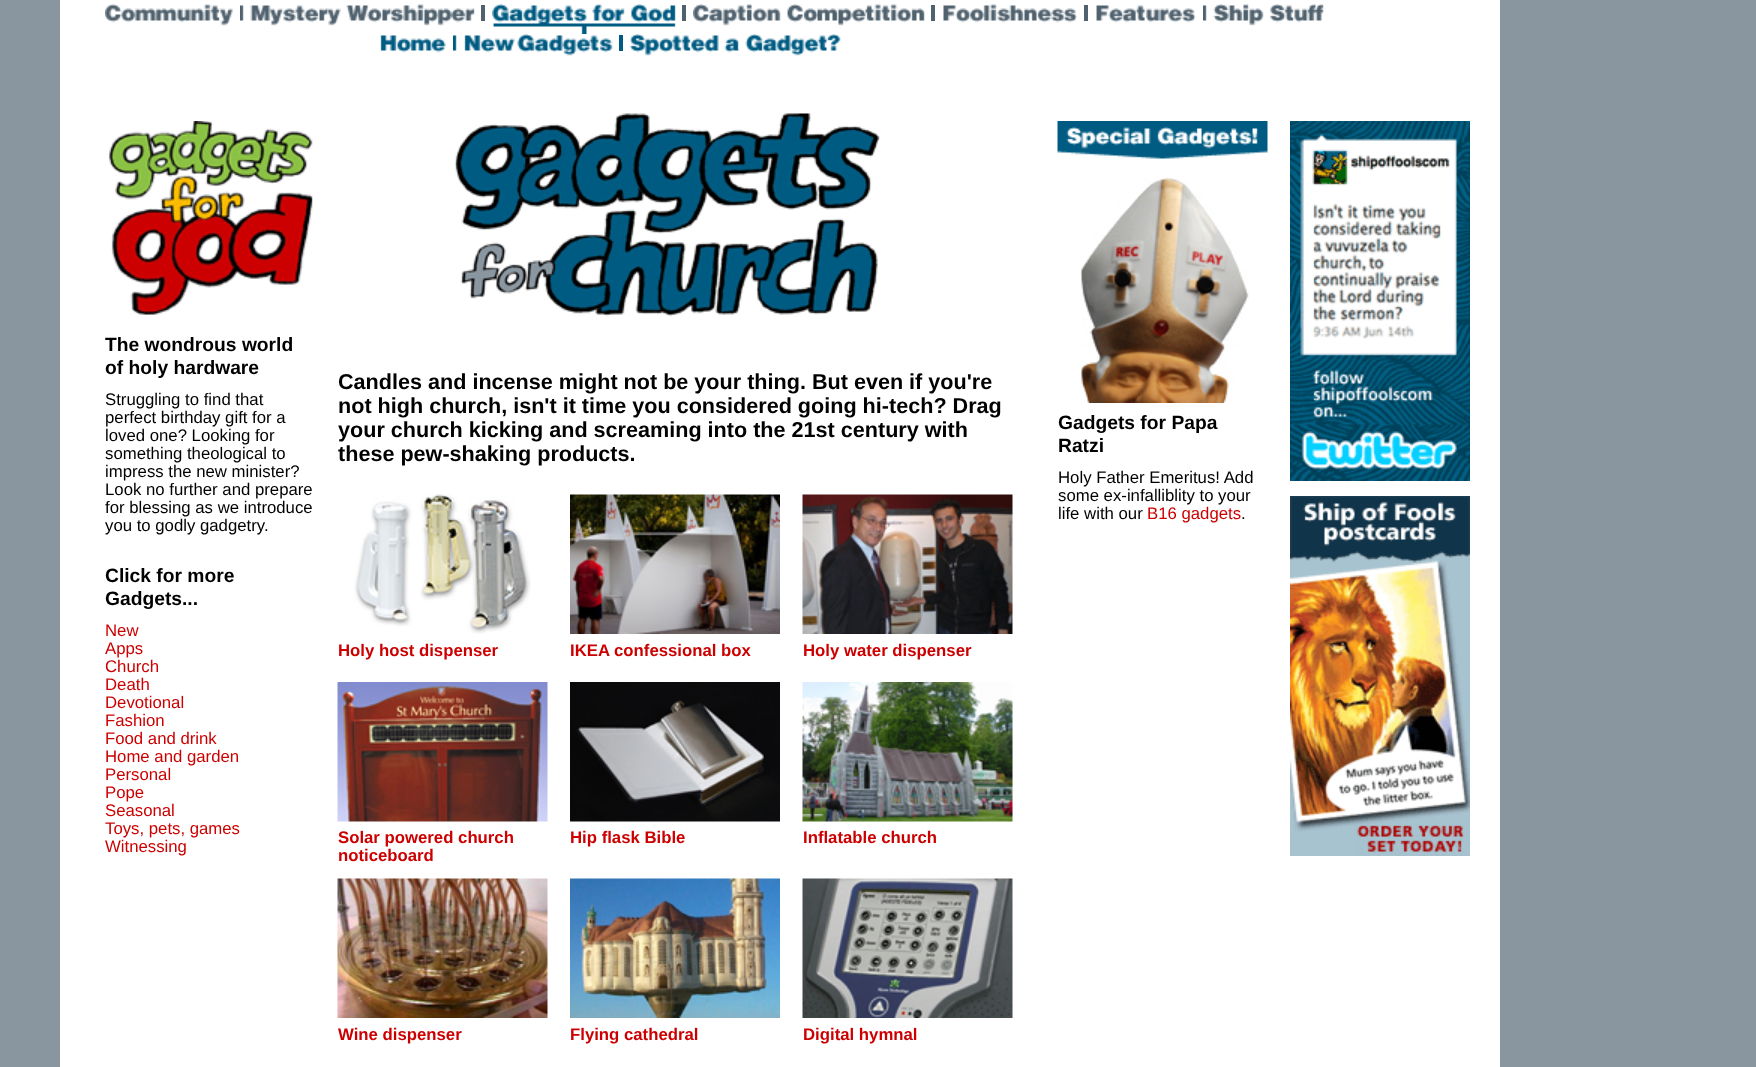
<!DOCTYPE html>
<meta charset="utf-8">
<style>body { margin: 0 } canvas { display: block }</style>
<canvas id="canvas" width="1756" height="1067"></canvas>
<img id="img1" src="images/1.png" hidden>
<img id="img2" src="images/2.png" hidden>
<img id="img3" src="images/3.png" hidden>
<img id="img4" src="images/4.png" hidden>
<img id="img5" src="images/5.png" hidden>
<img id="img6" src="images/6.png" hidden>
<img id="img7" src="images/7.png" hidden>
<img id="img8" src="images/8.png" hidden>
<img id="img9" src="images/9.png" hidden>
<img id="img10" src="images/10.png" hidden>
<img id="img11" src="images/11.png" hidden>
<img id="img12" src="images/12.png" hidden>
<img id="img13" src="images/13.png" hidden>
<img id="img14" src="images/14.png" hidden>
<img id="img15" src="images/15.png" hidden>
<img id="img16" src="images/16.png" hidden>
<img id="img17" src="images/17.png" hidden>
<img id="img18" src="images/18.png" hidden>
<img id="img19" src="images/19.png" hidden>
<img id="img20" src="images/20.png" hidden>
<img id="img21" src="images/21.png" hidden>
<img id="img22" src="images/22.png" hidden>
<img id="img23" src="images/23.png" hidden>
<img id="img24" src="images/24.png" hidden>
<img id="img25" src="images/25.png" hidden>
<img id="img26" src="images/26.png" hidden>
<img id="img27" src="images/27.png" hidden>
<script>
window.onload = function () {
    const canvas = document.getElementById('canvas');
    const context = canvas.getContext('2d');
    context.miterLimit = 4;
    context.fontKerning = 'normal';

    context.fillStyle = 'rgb(137, 150, 160)';
    context.fillRect(0, 0, 1756, 1067);
    context.fillStyle = 'rgb(255, 255, 255)';
    context.fillRect(60, 0, 1440, 1067);
    context.drawImage(document.getElementById('img1'), 105, 4, 128, 22);
    context.drawImage(document.getElementById('img2'), 240, 5, 4, 16);
    context.drawImage(document.getElementById('img3'), 250, 4, 225, 22);
    context.fillStyle = 'rgb(81, 98, 111)';
    context.fillRect(481, 5, 4, 16);
    context.drawImage(document.getElementById('img4'), 492, 4, 184, 30);
    context.fillRect(682, 5, 4, 16);
    context.drawImage(document.getElementById('img5'), 693, 4, 232, 22);
    context.fillRect(931, 5, 4, 16);
    context.drawImage(document.getElementById('img6'), 943, 4, 135, 19);
    context.fillRect(1084, 5, 4, 16);
    context.drawImage(document.getElementById('img7'), 1096, 5, 100, 18);
    context.drawImage(document.getElementById('img2'), 1203, 5, 4, 16);
    context.drawImage(document.getElementById('img8'), 1213, 4, 111, 22);
    context.drawImage(document.getElementById('img9'), 380, 35, 66, 18);
    context.drawImage(document.getElementById('img10'), 453, 35, 4, 16);
    context.drawImage(document.getElementById('img11'), 464, 34, 149, 22);
    context.fillStyle = 'rgb(0, 91, 130)';
    context.fillRect(619, 35, 4, 16);
    context.drawImage(document.getElementById('img12'), 630, 34, 211, 22);
    context.drawImage(document.getElementById('img13'), 108, 121, 205, 194);
    context.drawImage(document.getElementById('img14'), 454, 113, 426, 204);
    context.drawImage(document.getElementById('img15'), 354, 494, 177, 140);
    context.drawImage(document.getElementById('img16'), 570, 494, 210, 140);
    context.drawImage(document.getElementById('img17'), 802, 494, 211, 140);
    context.drawImage(document.getElementById('img18'), 337, 682, 211, 140);
    context.drawImage(document.getElementById('img19'), 570, 682, 210, 140);
    context.drawImage(document.getElementById('img20'), 802, 682, 211, 140);
    context.drawImage(document.getElementById('img21'), 337, 878, 211, 140);
    context.drawImage(document.getElementById('img22'), 570, 878, 210, 140);
    context.drawImage(document.getElementById('img23'), 802, 878, 211, 140);
    context.drawImage(document.getElementById('img24'), 1057, 121, 211, 39);
    context.drawImage(document.getElementById('img25'), 1080, 178, 169, 225);
    context.drawImage(document.getElementById('img26'), 1290, 121, 180, 360);
    context.drawImage(document.getElementById('img27'), 1290, 496, 180, 360);
    context.font = 'bold 19.25px Liberation Sans';
    context.fillStyle = 'rgb(0, 0, 0)';
    context.fillText('The wondrous world', 105, 351);
    context.fillText('of holy hardware', 105, 374);
    context.font = '16.75px Liberation Sans';
    context.fillText('Struggling to find that', 105, 405);
    context.fillText('perfect birthday gift for a', 105, 423);
    context.fillText('loved one? Looking for', 105, 441);
    context.fillText('something theological to', 105, 459);
    context.fillText('impress the new minister?', 105, 477);
    context.fillText('Look no further and prepare', 105, 495);
    context.fillText('for blessing as we introduce', 105, 513);
    context.fillText('you to godly gadgetry.', 105, 531);
    context.font = 'bold 19.25px Liberation Sans';
    context.fillText('Click for more', 105, 582);
    context.fillText('Gadgets...', 105, 605);
    context.font = '16.75px Liberation Sans';
    context.fillStyle = 'rgb(204, 0, 0)';
    context.fillText('New', 105, 636);
    context.fillText('Apps', 105, 654);
    context.fillText('Church', 105, 672);
    context.fillText('Death', 105, 690);
    context.fillText('Devotional', 105, 708);
    context.fillText('Fashion', 105, 726);
    context.fillText('Food and drink', 105, 744);
    context.fillText('Home and garden', 105, 762);
    context.fillText('Personal', 105, 780);
    context.fillText('Pope', 105, 798);
    context.fillText('Seasonal', 105, 816);
    context.fillText('Toys, pets, games', 105, 834);
    context.fillText('Witnessing', 105, 852);
    context.font = 'bold 21.6px Liberation Sans';
    context.fillStyle = 'rgb(0, 0, 0)';
    context.fillText('Candles and incense might not be your thing. But even if you\'re', 338, 389);
    context.fillText('not high church, isn\'t it time you considered going hi-tech? Drag', 338, 413);
    context.fillText('your church kicking and screaming into the 21st century with', 338, 437);
    context.fillText('these pew-shaking products.', 338, 461);
    context.font = 'bold 16.75px Liberation Sans';
    context.fillStyle = 'rgb(204, 0, 0)';
    context.fillText('Holy host dispenser', 338, 656);
    context.fillText('IKEA confessional box', 570, 656);
    context.fillText('Holy water dispenser', 803, 656);
    context.fillText('Solar powered church', 338, 843);
    context.fillText('noticeboard', 338, 861);
    context.fillText('Hip flask Bible', 570, 843);
    context.fillText('Inflatable church', 803, 843);
    context.fillText('Wine dispenser', 338, 1040);
    context.fillText('Flying cathedral', 570, 1040);
    context.fillText('Digital hymnal', 803, 1040);
    context.font = 'bold 19.25px Liberation Sans';
    context.fillStyle = 'rgb(0, 0, 0)';
    context.fillText('Gadgets for Papa', 1058, 429);
    context.fillText('Ratzi', 1058, 452);
    context.font = '16.75px Liberation Sans';
    context.fillText('Holy Father Emeritus! Add', 1058, 483);
    context.fillText('some ex-infalliblity to your', 1058, 501);
    context.fillText('life with our', 1058, 519);
    context.fillStyle = 'rgb(204, 0, 0)';
    context.fillText('B16 gadgets', 1147, 519);
    context.fillStyle = 'rgb(0, 0, 0)';
    context.fillText('.', 1241, 519);
};
</script>
